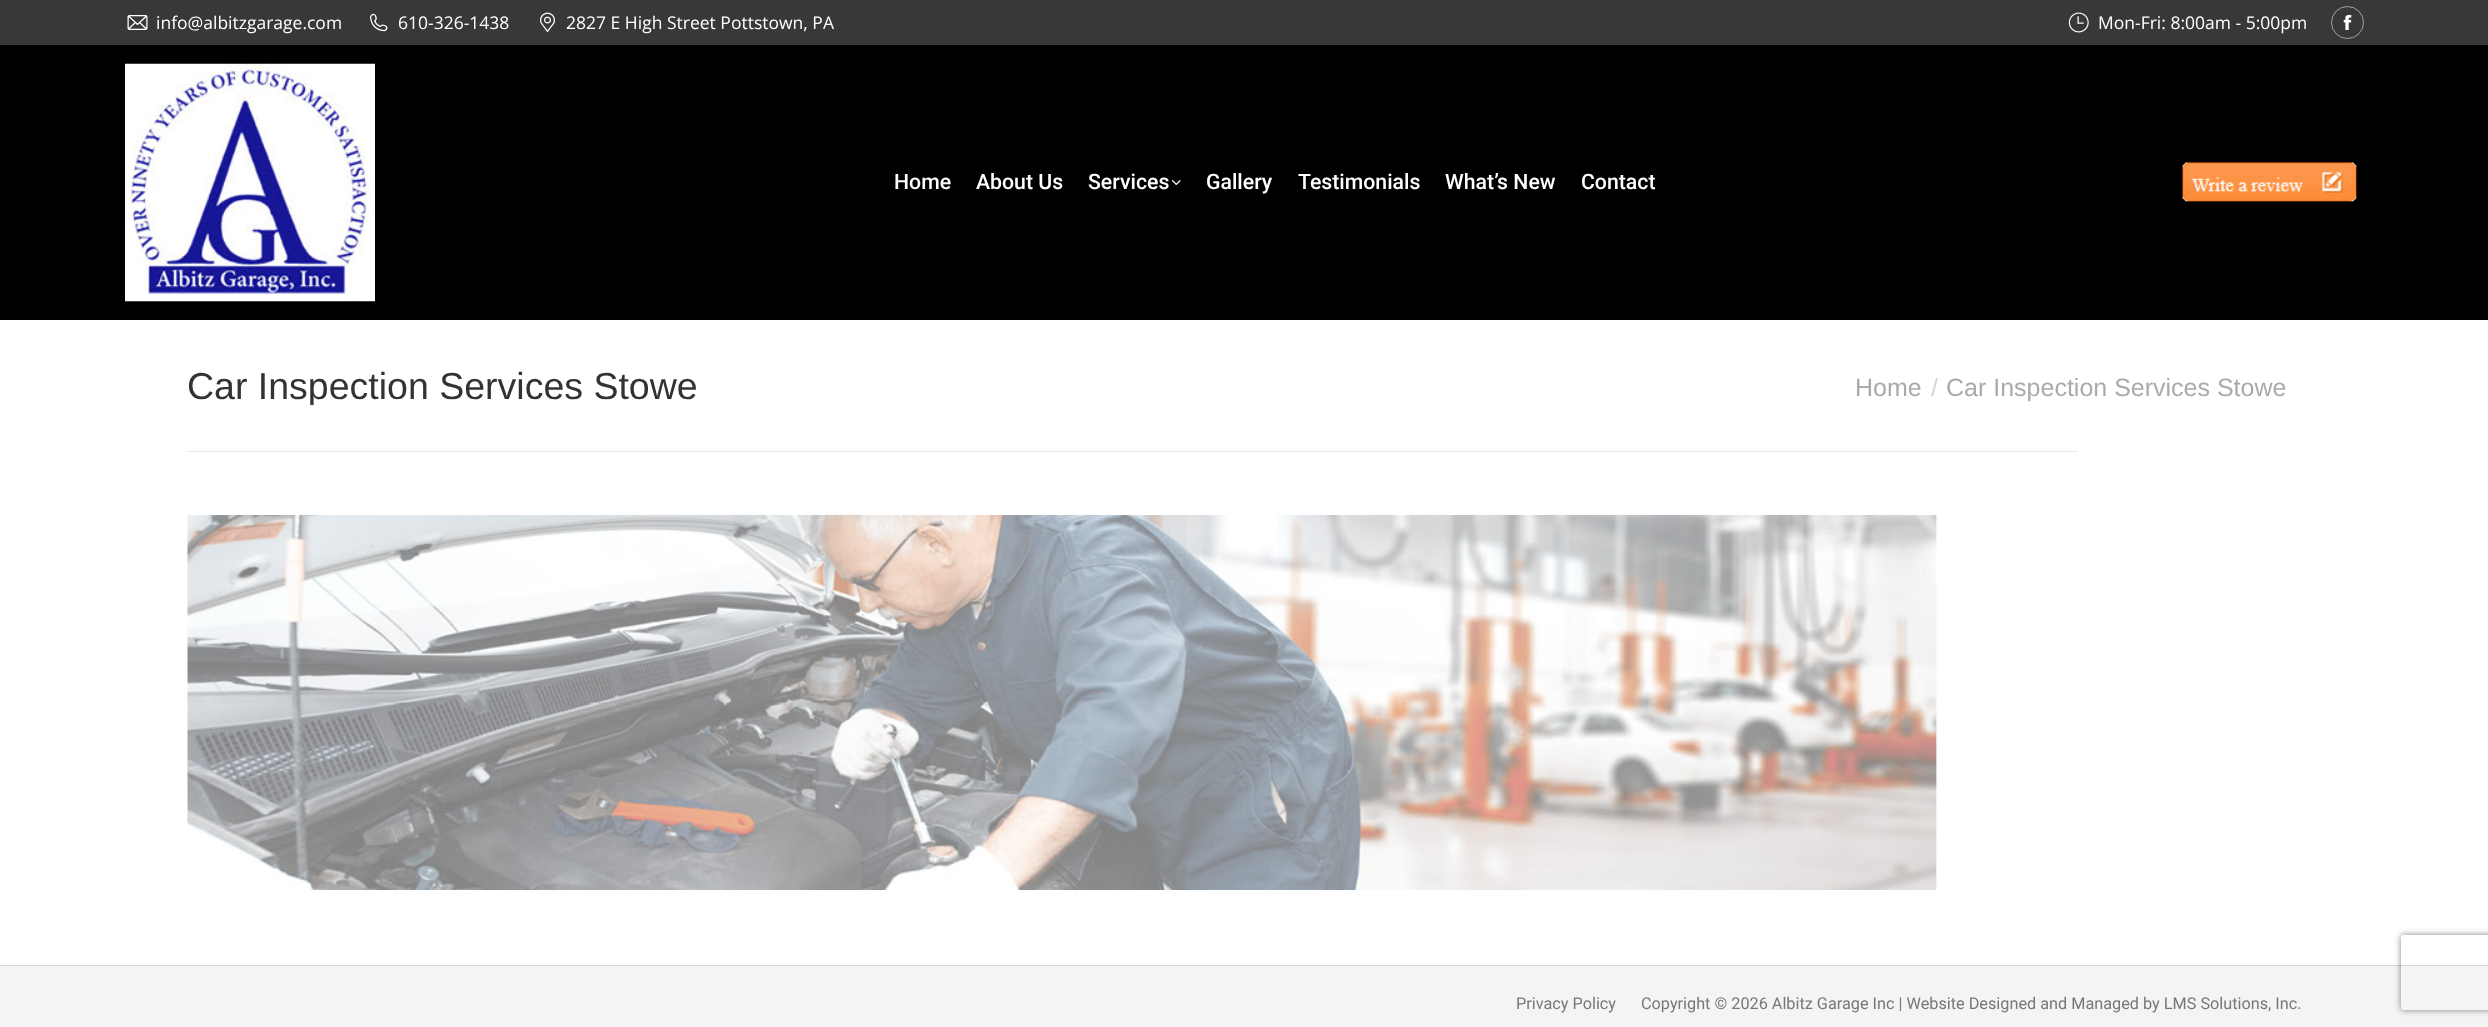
<!DOCTYPE html>
<meta charset="utf-8">
<style>body { margin: 0 } canvas { display: block }</style>
<canvas id="canvas" width="2488" height="1027"></canvas>
<img id="img1" src="images/1.png" hidden>
<img id="img2" src="images/2.png" hidden>
<img id="img3" src="images/3.png" hidden>
<img id="img4" src="images/4.png" hidden>
<img id="img5" src="images/5.png" hidden>
<img id="img6" src="images/6.png" hidden>
<img id="img7" src="images/7.png" hidden>
<img id="img8" src="images/8.png" hidden>
<img id="img9" src="images/9.png" hidden>
<script>
window.onload = function () {
    const canvas = document.getElementById('canvas');
    const context = canvas.getContext('2d');
    context.miterLimit = 4;
    context.fontKerning = 'normal';

    context.fillStyle = 'rgb(255, 255, 255)';
    context.fillRect(0, 0, 2488, 1027);
    context.fillStyle = 'rgb(0, 0, 0)';
    context.fillRect(0, 45, 2488, 275);
    context.fillStyle = 'rgb(56, 56, 56)';
    context.fillRect(0, 0, 2488, 45);
    context.drawImage(document.getElementById('img1'), 127, 15, 21, 15);
    context.drawImage(document.getElementById('img2'), 370, 13, 18, 19);
    context.drawImage(document.getElementById('img3'), 540, 12, 15, 21);
    context.drawImage(document.getElementById('img4'), 2068, 12, 21, 21);
    context.beginPath();
    context.arc(2347.5, 22.5, 16, 0, 2 * Math.PI);
    context.strokeStyle = 'rgb(163, 163, 163)';
    context.stroke();
    context.drawImage(document.getElementById('img5'), 2343, 15, 9, 15);
    context.drawImage(document.getElementById('img6'), 125, 63, 250, 239);
    context.drawImage(document.getElementById('img7'), 1171, 180, 10, 5);
    context.drawImage(document.getElementById('img8'), 2182, 162, 175, 40);
    context.fillStyle = 'rgb(233, 233, 233)';
    context.fillRect(188, 451, 1890, 1);
    context.drawImage(document.getElementById('img9'), 187, 515, 1751, 375);
    context.fillStyle = 'rgb(244, 244, 244)';
    context.fillRect(0, 966, 2488, 61);
    context.fillStyle = 'rgb(214, 214, 214)';
    context.fillRect(0, 965, 2488, 1);
    context.save();
    context.beginPath();
    context.moveTo(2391, 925);
    context.lineTo(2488, 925);
    context.lineTo(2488, 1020);
    context.lineTo(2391, 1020);
    context.closePath();
    context.moveTo(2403.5, 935);
    context.lineTo(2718.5, 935);
    context.bezierCurveTo(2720, 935, 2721, 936, 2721, 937.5);
    context.lineTo(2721, 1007.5);
    context.bezierCurveTo(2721, 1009, 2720, 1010, 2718.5, 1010);
    context.lineTo(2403.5, 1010);
    context.bezierCurveTo(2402, 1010, 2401, 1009, 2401, 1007.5);
    context.lineTo(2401, 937.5);
    context.bezierCurveTo(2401, 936, 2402, 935, 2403.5, 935);
    context.closePath();
    context.clip('evenodd');
    context.fillStyle = 'rgb(128, 128, 128)';
    context.filter = 'blur(3px)';
    context.beginPath();
    context.roundRect(2401, 935, 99, 75, 2.5);
    context.fill();
    context.filter = 'none';
    context.restore();
    context.font = '17.5px Open Sans';
    context.fillStyle = 'rgb(255, 255, 255)';
    context.fillText('info@albitzgarage.com', 156, 29);
    context.fillText('610-326-1438', 398, 29);
    context.fillText('2827 E High Street Pottstown, PA', 566, 29);
    context.fillText('Mon-Fri: 8:00am - 5:00pm', 2098, 29);
    context.font = '500 21.25px Roboto';
    context.fillText('Home', 894, 189);
    context.fillText('About Us', 976, 189);
    context.fillText('Services', 1088, 189);
    context.fillText('Gallery', 1206, 189);
    context.fillText('Testimonials', 1298, 189);
    context.fillText('What’s New', 1445, 189);
    context.fillText('Contact', 1581, 189);
    context.save();
    context.beginPath();
    context.rect(188, 368, 510, 37);
    context.clip();
    context.font = '37.5px Liberation Sans';
    context.fillStyle = 'rgb(51, 51, 51)';
    context.fillText('Car Inspection Services Stowe', 187, 399);
    context.restore();
    context.font = '25px Liberation Sans';
    context.fillStyle = 'rgb(170, 170, 170)';
    context.fillText('Home', 1855, 396);
    context.fillStyle = 'rgb(213, 213, 213)';
    context.fillText('/', 1931, 396);
    context.fillStyle = 'rgb(170, 170, 170)';
    context.fillText('Car Inspection Services Stowe', 1946, 396);
    context.font = '16.25px Roboto';
    context.fillStyle = 'rgb(119, 119, 119)';
    context.fillText('Privacy Policy', 1516, 1009);
    context.fillText('Copyright © 2026 Albitz Garage Inc | Website Designed and Managed by LMS Solutions, Inc.', 1641, 1009);
};
</script>
